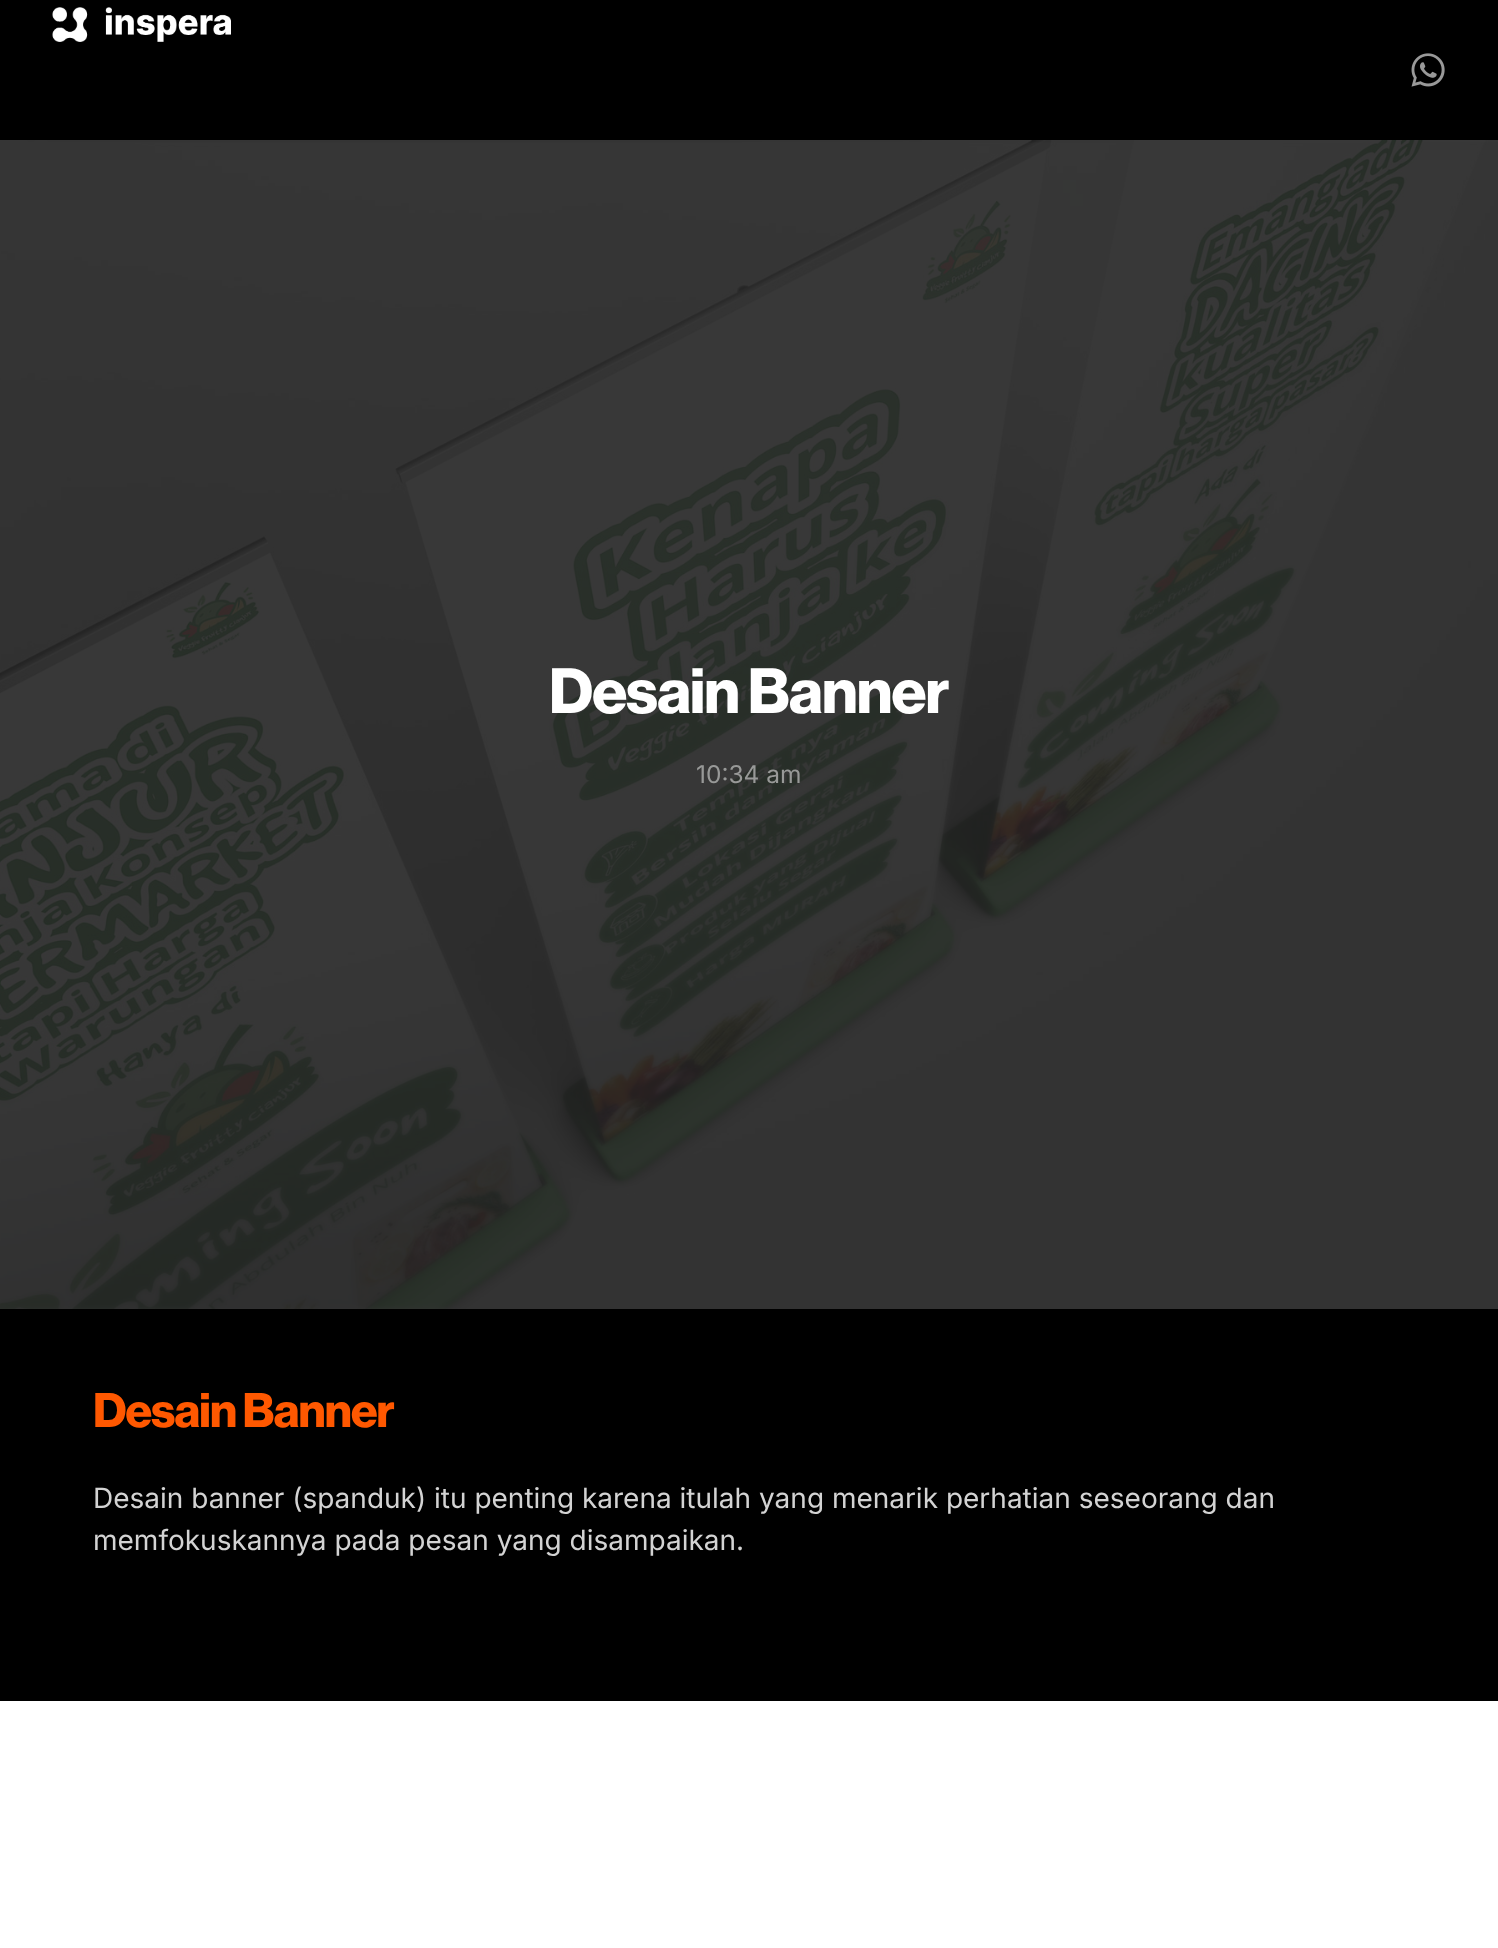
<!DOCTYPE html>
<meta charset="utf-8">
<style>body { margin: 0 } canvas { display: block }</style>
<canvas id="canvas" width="1498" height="1948"></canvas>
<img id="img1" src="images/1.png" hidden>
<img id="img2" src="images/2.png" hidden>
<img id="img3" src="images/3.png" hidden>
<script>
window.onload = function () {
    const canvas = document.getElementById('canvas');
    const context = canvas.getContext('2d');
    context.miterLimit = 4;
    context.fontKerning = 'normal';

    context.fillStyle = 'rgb(255, 255, 255)';
    context.fillRect(0, 0, 1498, 1948);
    context.fillStyle = 'rgb(0, 0, 0)';
    context.fillRect(0, 0, 1498, 1701);
    context.drawImage(document.getElementById('img1'), 52, 7, 179, 35);
    context.drawImage(document.getElementById('img2'), 1411, 53, 34, 34);
    context.drawImage(document.getElementById('img3'), 0, 140, 1498, 1169);
    context.letterSpacing = '-0.9px';
    context.font = 'bold 62.5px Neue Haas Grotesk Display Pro';
    context.fillStyle = 'rgb(255, 255, 255)';
    context.fillText('Desain Banner', 549, 713);
    context.letterSpacing = '0px';
    context.font = '24.5px Inter';
    context.fillStyle = 'rgb(152, 153, 152)';
    context.fillText('10:34 am', 696, 783);
    context.letterSpacing = '-0.9px';
    context.font = 'bold 47.5px Neue Haas Grotesk Display Pro';
    context.fillStyle = 'rgb(255, 88, 0)';
    context.fillText('Desain Banner', 93, 1427);
    context.letterSpacing = '0px';
    context.font = '28px Inter';
    context.fillStyle = 'rgb(211, 211, 211)';
    context.fillText('Desain banner (spanduk) itu penting karena itulah yang menarik perhatian seseorang dan', 93, 1508);
    context.fillText('memfokuskannya pada pesan yang disampaikan.', 93, 1550);
};
</script>
